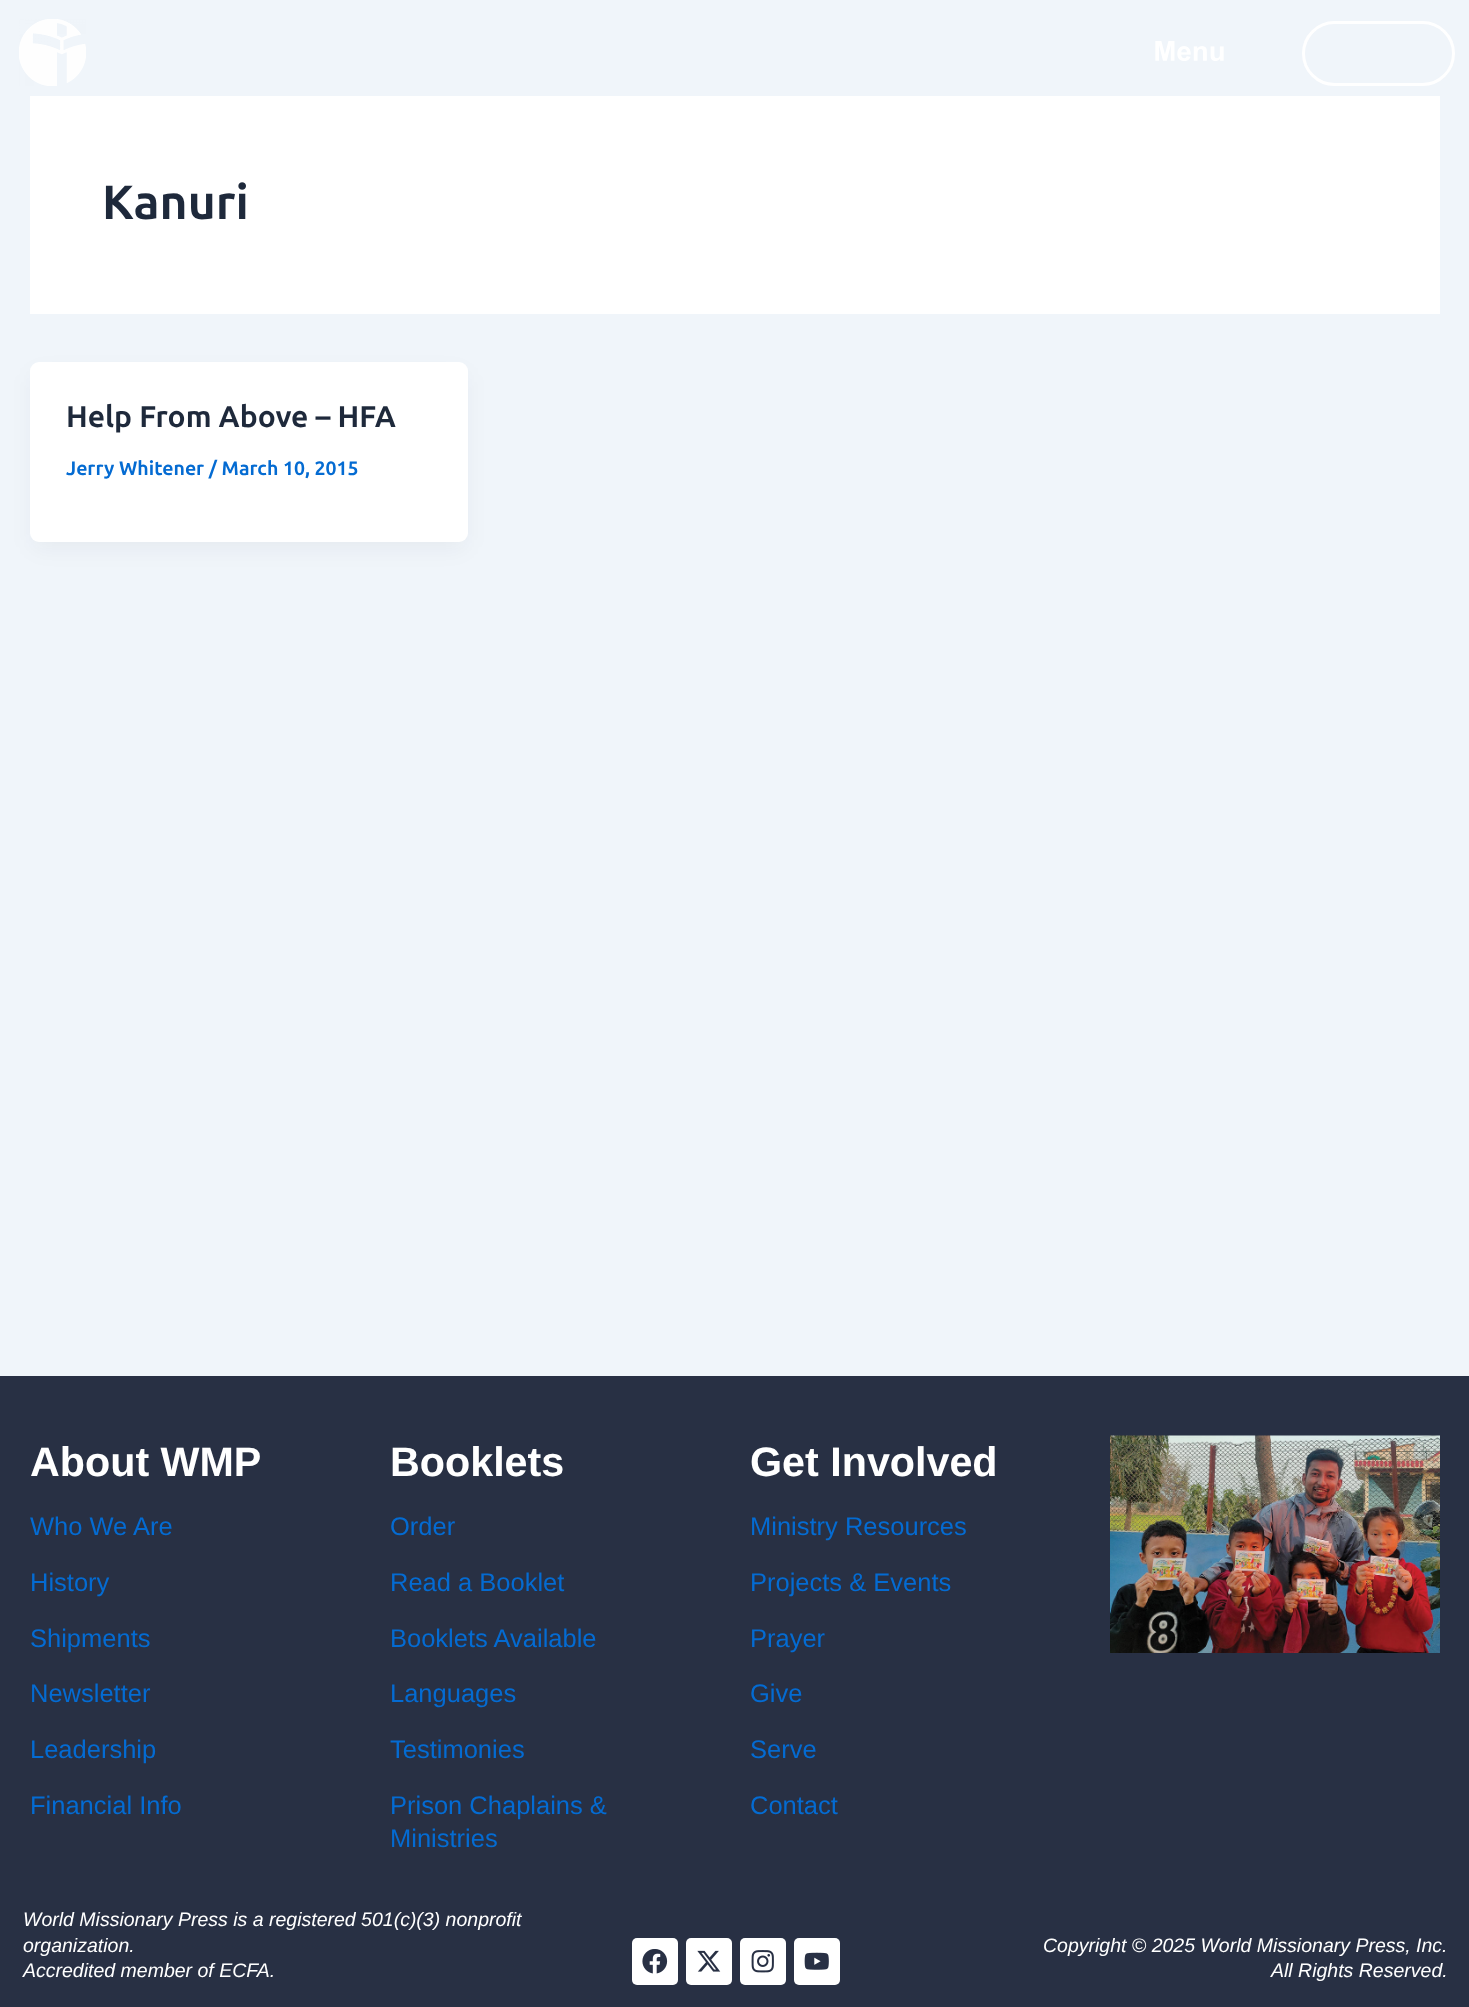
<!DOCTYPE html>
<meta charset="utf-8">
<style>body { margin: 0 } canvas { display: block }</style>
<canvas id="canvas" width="1469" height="2007"></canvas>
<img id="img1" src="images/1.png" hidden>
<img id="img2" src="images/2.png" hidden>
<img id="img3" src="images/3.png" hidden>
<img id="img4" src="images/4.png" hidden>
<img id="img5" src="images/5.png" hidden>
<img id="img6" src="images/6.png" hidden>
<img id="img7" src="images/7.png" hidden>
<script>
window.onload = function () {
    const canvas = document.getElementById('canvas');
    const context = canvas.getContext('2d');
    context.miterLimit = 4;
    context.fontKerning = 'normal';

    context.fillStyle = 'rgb(240, 245, 250)';
    context.fillRect(0, 0, 1469, 2007);
    context.drawImage(document.getElementById('img1'), 19, 19, 67, 67);
    context.drawImage(document.getElementById('img2'), 1155, 41, 69, 20);
    context.beginPath();
    context.roundRect(1303.5, 22.5, 150, 62, 31);
    context.strokeStyle = 'rgb(255, 255, 255)';
    context.lineWidth = 3;
    context.stroke();
    context.fillStyle = 'rgb(255, 255, 255)';
    context.fillRect(30, 96, 1410, 218);
    context.fillStyle = 'rgba(16, 24, 40, 0.05)';
    context.filter = 'blur(11px)';
    context.beginPath();
    context.roundRect(33, 374, 432, 174, 6);
    context.fill();
    context.filter = 'none';
    context.fillStyle = 'rgb(255, 255, 255)';
    context.beginPath();
    context.roundRect(30, 362, 438, 180, 9);
    context.fill();
    context.fillStyle = 'rgb(40, 48, 68)';
    context.fillRect(0, 1376, 1469, 631);
    context.drawImage(document.getElementById('img3'), 1110, 1435, 330, 218);
    context.fillStyle = 'rgb(255, 255, 255)';
    context.beginPath();
    context.roundRect(632, 1938, 46, 47, 5);
    context.fill();
    context.drawImage(document.getElementById('img4'), 642, 1949, 26, 25);
    context.beginPath();
    context.roundRect(686, 1938, 46, 47, 5);
    context.fill();
    context.drawImage(document.getElementById('img5'), 697, 1950, 24, 22);
    context.beginPath();
    context.roundRect(740, 1938, 46, 47, 5);
    context.fill();
    context.drawImage(document.getElementById('img6'), 751, 1950, 23, 23);
    context.beginPath();
    context.roundRect(794, 1938, 46, 47, 5);
    context.fill();
    context.drawImage(document.getElementById('img7'), 804, 1952, 25, 18);
    context.font = 'bold 48px Ubuntu';
    context.fillStyle = 'rgb(30, 41, 59)';
    context.fillText('Kanuri', 102, 219);
    context.font = 'bold 30px Ubuntu';
    context.fillText('Help From Above – HFA', 66, 427);
    context.font = 'bold 19.5px Ubuntu';
    context.fillStyle = 'rgb(4, 107, 210)';
    context.fillText('Jerry Whitener / March 10, 2015', 66, 475);
    context.font = 'bold 41.25px Liberation Sans';
    context.fillStyle = 'rgb(255, 255, 255)';
    context.fillText('About WMP', 30, 1476);
    context.font = '25.5px Liberation Sans';
    context.fillStyle = 'rgb(4, 107, 210)';
    context.fillText('Who We Are', 30, 1535);
    context.fillText('History', 30, 1591);
    context.fillText('Shipments', 30, 1647);
    context.fillText('Newsletter', 30, 1702);
    context.fillText('Leadership', 30, 1758);
    context.fillText('Financial Info', 30, 1814);
    context.font = 'bold 41.25px Liberation Sans';
    context.fillStyle = 'rgb(255, 255, 255)';
    context.fillText('Booklets', 390, 1476);
    context.font = '25.5px Liberation Sans';
    context.fillStyle = 'rgb(4, 107, 210)';
    context.fillText('Order', 390, 1535);
    context.fillText('Read a Booklet', 390, 1591);
    context.fillText('Booklets Available', 390, 1647);
    context.fillText('Languages', 390, 1702);
    context.fillText('Testimonies', 390, 1758);
    context.fillText('Prison Chaplains &', 390, 1814);
    context.fillText('Ministries', 390, 1847);
    context.font = 'bold 41.25px Liberation Sans';
    context.fillStyle = 'rgb(255, 255, 255)';
    context.fillText('Get Involved', 750, 1476);
    context.font = '25.5px Liberation Sans';
    context.fillStyle = 'rgb(4, 107, 210)';
    context.fillText('Ministry Resources', 750, 1535);
    context.fillText('Projects & Events', 750, 1591);
    context.fillText('Prayer', 750, 1647);
    context.fillText('Give', 750, 1702);
    context.fillText('Serve', 750, 1758);
    context.fillText('Contact', 750, 1814);
    context.font = 'italic 19.5px Liberation Sans';
    context.fillStyle = 'rgb(255, 255, 255)';
    context.fillText('World Missionary Press is a registered 501(c)(3) nonprofit', 23, 1926);
    context.fillText('organization.', 23, 1952);
    context.fillText('Accredited member of ECFA.', 23, 1977);
    context.fillText('Copyright © 2025 World Missionary Press, Inc.', 1043, 1952);
    context.fillText('All Rights Reserved.', 1271, 1977);
};
</script>
